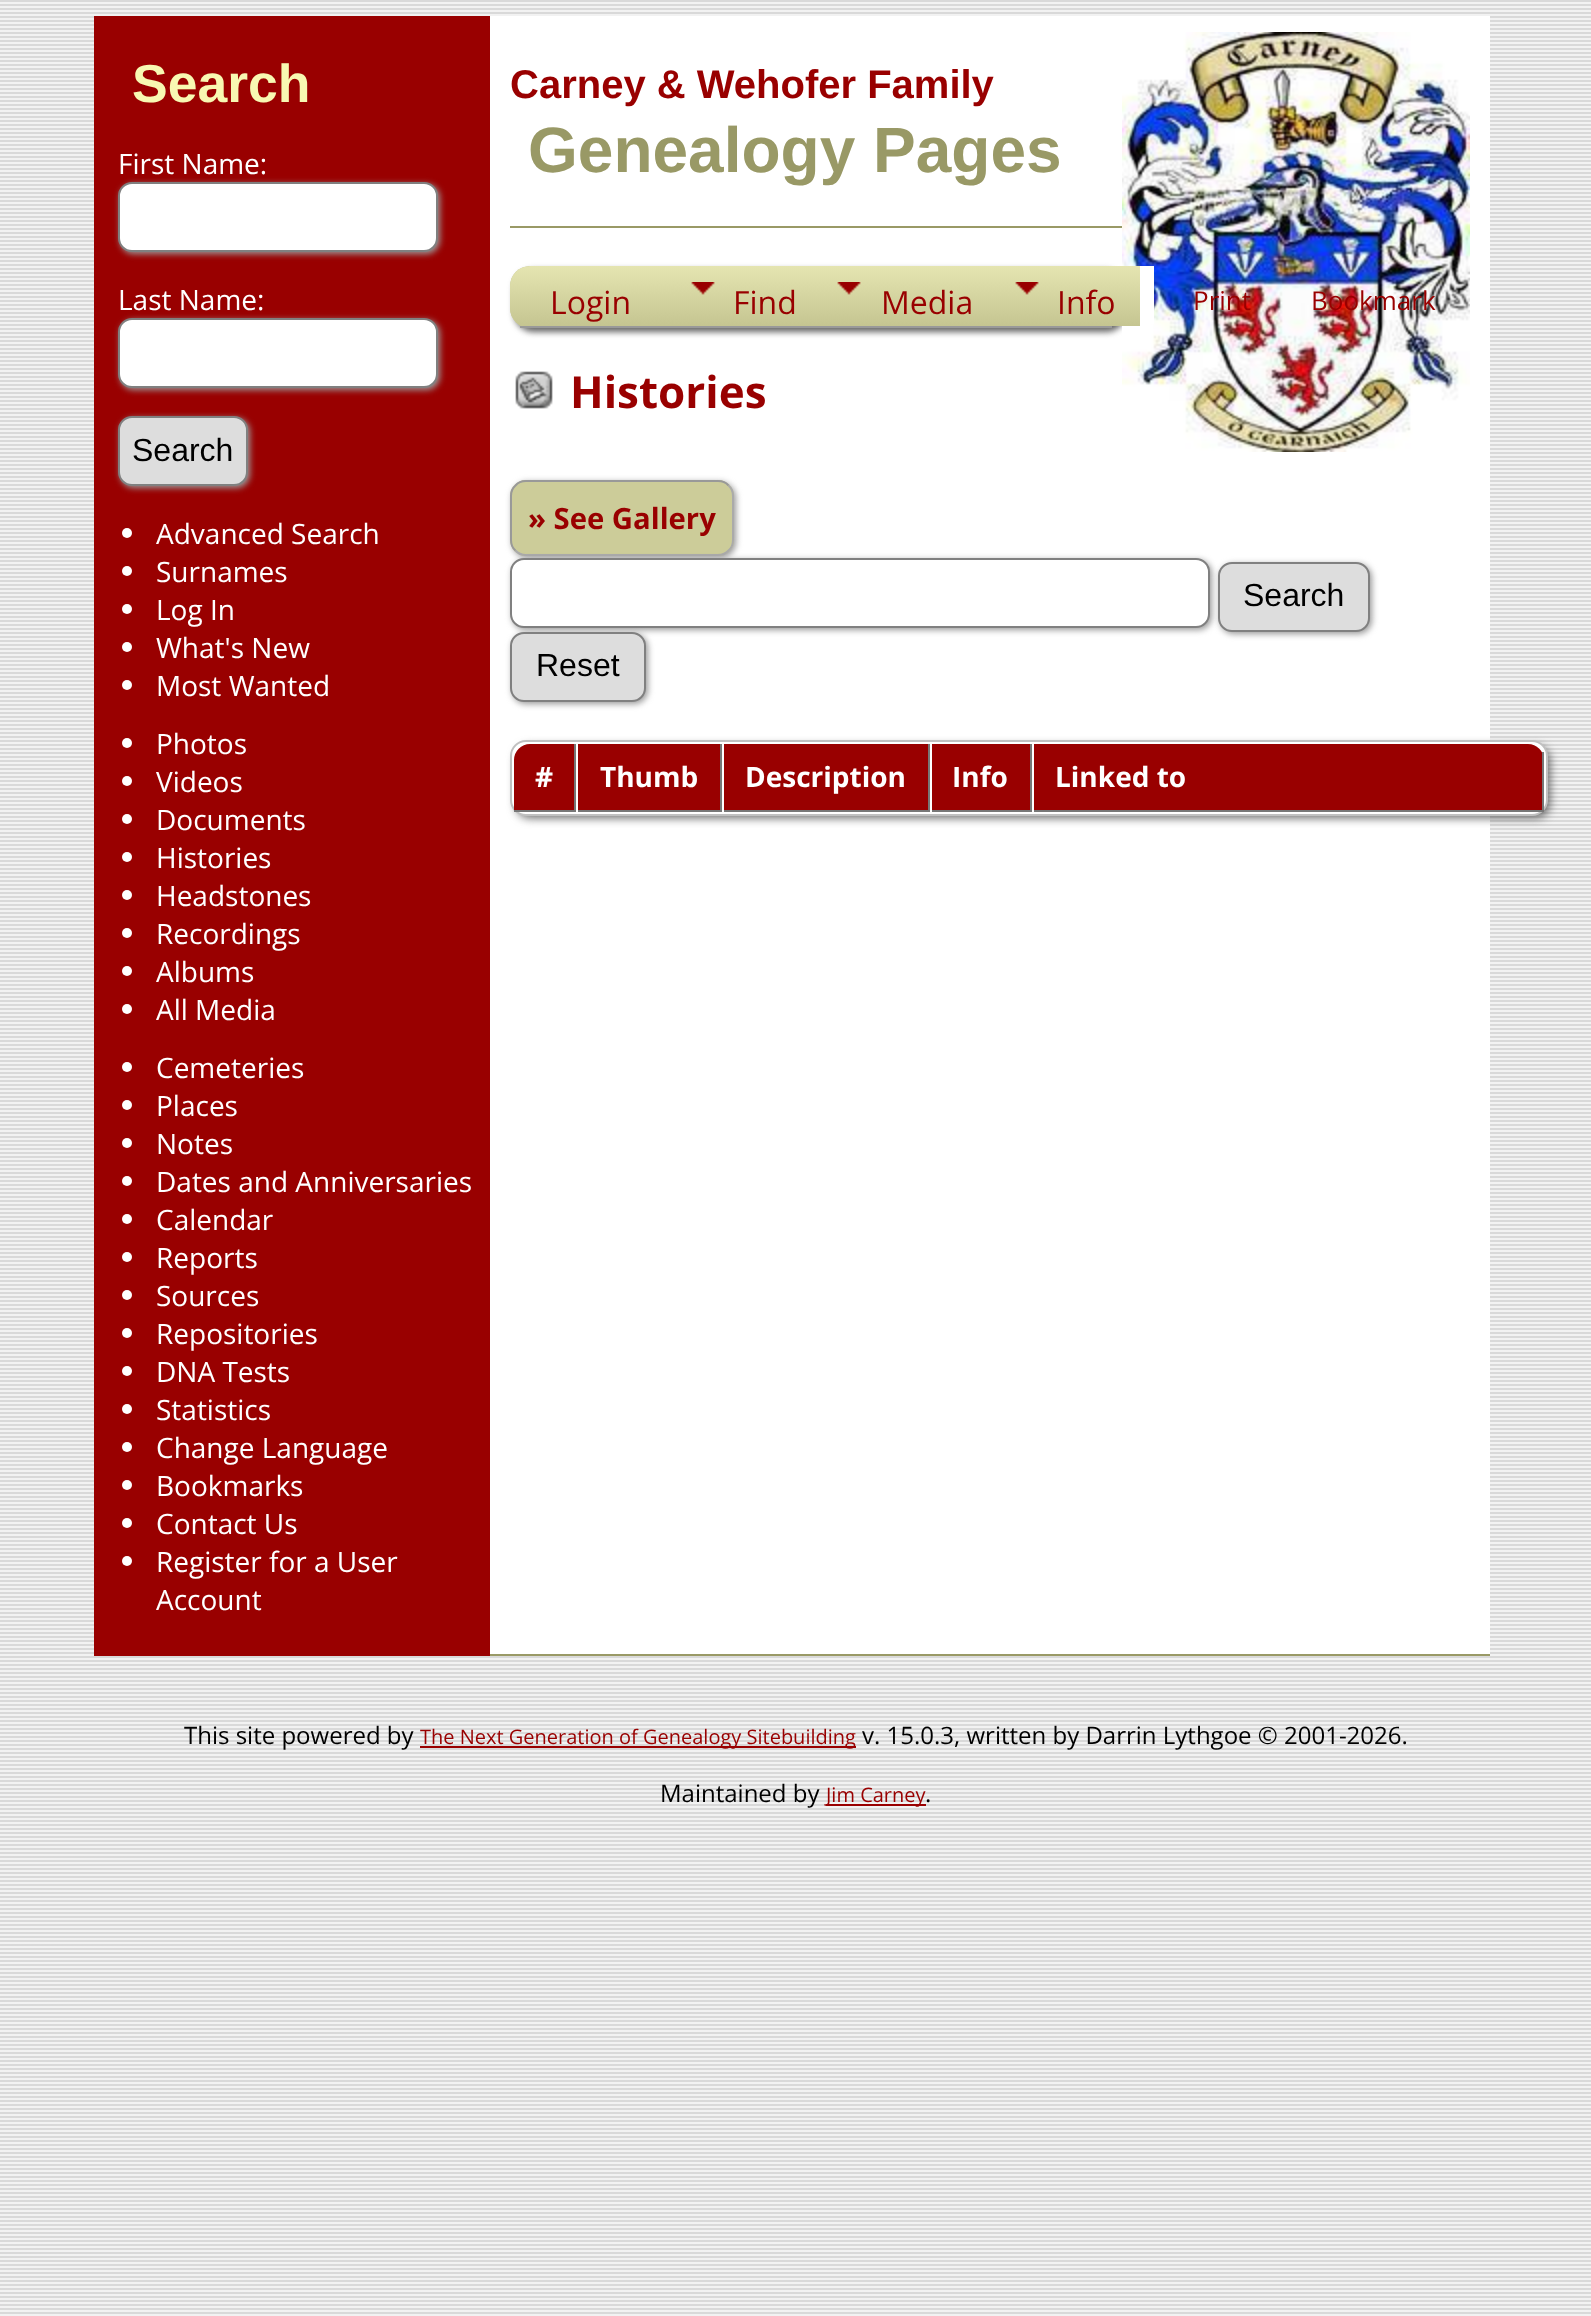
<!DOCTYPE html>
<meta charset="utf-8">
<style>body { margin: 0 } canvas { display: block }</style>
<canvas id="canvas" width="1591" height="2316"></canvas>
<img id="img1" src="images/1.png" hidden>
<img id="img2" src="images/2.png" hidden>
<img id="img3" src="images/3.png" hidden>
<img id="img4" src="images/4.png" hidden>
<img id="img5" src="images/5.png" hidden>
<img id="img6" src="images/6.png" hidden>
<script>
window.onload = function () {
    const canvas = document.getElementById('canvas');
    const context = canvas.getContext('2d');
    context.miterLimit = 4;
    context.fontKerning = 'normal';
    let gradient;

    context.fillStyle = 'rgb(255, 255, 255)';
    context.fillRect(0, 0, 1591, 2316);
    context.drawImage(document.getElementById('img1'), 0, 0, 1591, 2316);
    context.fillStyle = 'rgb(153, 0, 0)';
    context.fillRect(94, 16, 396, 1640);
    context.fillStyle = 'rgb(153, 153, 153)';
    context.filter = 'blur(3px)';
    context.beginPath();
    context.roundRect(120, 184, 320, 70, 14);
    context.fill();
    context.filter = 'none';
    context.fillStyle = 'rgb(255, 255, 255)';
    context.beginPath();
    context.roundRect(119, 183, 318, 68, 13);
    context.fill();
    context.strokeStyle = 'rgb(128, 128, 128)';
    context.lineWidth = 2;
    context.stroke();
    context.fillStyle = 'rgb(153, 153, 153)';
    context.filter = 'blur(3px)';
    context.beginPath();
    context.roundRect(120, 320, 320, 70, 14);
    context.fill();
    context.filter = 'none';
    context.fillStyle = 'rgb(255, 255, 255)';
    context.beginPath();
    context.roundRect(119, 319, 318, 68, 13);
    context.fill();
    context.stroke();
    context.fillStyle = 'rgb(153, 153, 153)';
    context.filter = 'blur(3px)';
    context.beginPath();
    context.roundRect(120, 418, 130, 70, 14);
    context.fill();
    context.filter = 'none';
    context.fillStyle = 'rgb(221, 221, 221)';
    context.beginPath();
    context.roundRect(119, 417, 128, 68, 13);
    context.fill();
    context.stroke();
    context.fillStyle = 'rgb(255, 255, 255)';
    context.beginPath();
    context.arc(127, 533, 5, 0, 2 * Math.PI);
    context.fill();
    context.beginPath();
    context.arc(127, 571, 5, 0, 2 * Math.PI);
    context.fill();
    context.beginPath();
    context.arc(127, 609, 5, 0, 2 * Math.PI);
    context.fill();
    context.beginPath();
    context.arc(127, 647, 5, 0, 2 * Math.PI);
    context.fill();
    context.beginPath();
    context.arc(127, 685, 5, 0, 2 * Math.PI);
    context.fill();
    context.beginPath();
    context.arc(127, 743, 5, 0, 2 * Math.PI);
    context.fill();
    context.beginPath();
    context.arc(127, 781, 5, 0, 2 * Math.PI);
    context.fill();
    context.beginPath();
    context.arc(127, 819, 5, 0, 2 * Math.PI);
    context.fill();
    context.beginPath();
    context.arc(127, 857, 5, 0, 2 * Math.PI);
    context.fill();
    context.beginPath();
    context.arc(127, 895, 5, 0, 2 * Math.PI);
    context.fill();
    context.beginPath();
    context.arc(127, 933, 5, 0, 2 * Math.PI);
    context.fill();
    context.beginPath();
    context.arc(127, 971, 5, 0, 2 * Math.PI);
    context.fill();
    context.beginPath();
    context.arc(127, 1009, 5, 0, 2 * Math.PI);
    context.fill();
    context.beginPath();
    context.arc(127, 1067, 5, 0, 2 * Math.PI);
    context.fill();
    context.beginPath();
    context.arc(127, 1105, 5, 0, 2 * Math.PI);
    context.fill();
    context.beginPath();
    context.arc(127, 1143, 5, 0, 2 * Math.PI);
    context.fill();
    context.beginPath();
    context.arc(127, 1181, 5, 0, 2 * Math.PI);
    context.fill();
    context.beginPath();
    context.arc(127, 1219, 5, 0, 2 * Math.PI);
    context.fill();
    context.beginPath();
    context.arc(127, 1257, 5, 0, 2 * Math.PI);
    context.fill();
    context.beginPath();
    context.arc(127, 1295, 5, 0, 2 * Math.PI);
    context.fill();
    context.beginPath();
    context.arc(127, 1333, 5, 0, 2 * Math.PI);
    context.fill();
    context.beginPath();
    context.arc(127, 1371, 5, 0, 2 * Math.PI);
    context.fill();
    context.beginPath();
    context.arc(127, 1409, 5, 0, 2 * Math.PI);
    context.fill();
    context.beginPath();
    context.arc(127, 1447, 5, 0, 2 * Math.PI);
    context.fill();
    context.beginPath();
    context.arc(127, 1485, 5, 0, 2 * Math.PI);
    context.fill();
    context.beginPath();
    context.arc(127, 1523, 5, 0, 2 * Math.PI);
    context.fill();
    context.beginPath();
    context.arc(127, 1561, 5, 0, 2 * Math.PI);
    context.fill();
    context.fillRect(490, 16, 1000, 1638);
    context.fillStyle = 'rgb(153, 153, 102)';
    context.fillRect(490, 1654, 1000, 2);
    context.fillStyle = 'rgb(102, 102, 102)';
    context.filter = 'blur(3px)';
    context.beginPath();
    context.roundRect(514, 270, 612, 62, 20);
    context.fill();
    context.filter = 'none';
    context.drawImage(document.getElementById('img2'), 1122, 32, 348, 420);
    context.fillStyle = 'rgb(153, 153, 102)';
    context.fillRect(510, 226, 612, 2);
    context.fillStyle = 'rgb(204, 204, 153)';
    context.beginPath();
    context.roundRect(510, 266, 612, 62, 20);
    context.fill();
    context.save();
    context.beginPath();
    context.roundRect(510, 266, 612, 62, 20);
    context.clip();
    gradient = context.createLinearGradient(816, 266, 816, 326);
    gradient.addColorStop(0, 'rgb(229, 229, 177)');
    gradient.addColorStop(1, 'rgb(197, 197, 145)');
    context.fillStyle = gradient;
    context.beginPath();
    context.roundRect(510, 266, 612, 60, [20, 20, 0, 0]);
    context.fill();
    context.restore();
    context.fillStyle = 'rgb(153, 153, 153)';
    context.fillRect(520, 326, 592, 2);
    context.fillStyle = 'rgb(255, 255, 255)';
    context.fillRect(1140, 266, 14, 58);
    context.drawImage(document.getElementById('img3'), 674, 266, 146, 60);
    context.drawImage(document.getElementById('img4'), 820, 266, 178, 60);
    context.drawImage(document.getElementById('img5'), 998, 266, 142, 60);
    context.drawImage(document.getElementById('img6'), 515, 371, 38, 38);
    context.fillStyle = 'rgb(153, 153, 153)';
    context.filter = 'blur(3px)';
    context.beginPath();
    context.roundRect(512, 482, 224, 76, 16);
    context.fill();
    context.filter = 'none';
    context.fillStyle = 'rgb(204, 204, 153)';
    context.beginPath();
    context.roundRect(510, 480, 224, 76, 16);
    context.fill();
    context.beginPath();
    context.moveTo(728.5, 485.5);
    context.bezierCurveTo(731.5, 488, 733, 492, 733, 496);
    context.lineTo(733, 540);
    context.bezierCurveTo(733, 544, 731.5, 548, 728.5, 550.5);
    context.bezierCurveTo(726, 553.5, 722, 555, 718, 555);
    context.lineTo(526, 555);
    context.bezierCurveTo(522, 555, 518, 553.5, 515.5, 550.5);
    context.strokeStyle = 'rgb(170, 170, 170)';
    context.stroke();
    context.beginPath();
    context.moveTo(515.5, 550.5);
    context.bezierCurveTo(512.5, 548, 511, 544, 511, 540);
    context.lineTo(511, 496);
    context.bezierCurveTo(511, 492, 512.5, 488, 515.5, 485.5);
    context.bezierCurveTo(518, 482.5, 522, 481, 526, 481);
    context.lineTo(718, 481);
    context.bezierCurveTo(722, 481, 726, 482.5, 728.5, 485.5);
    context.strokeStyle = 'rgb(153, 153, 153)';
    context.stroke();
    context.fillStyle = 'rgb(153, 153, 153)';
    context.filter = 'blur(3px)';
    context.beginPath();
    context.roundRect(512, 560, 700, 70, 14);
    context.fill();
    context.filter = 'none';
    context.fillStyle = 'rgb(255, 255, 255)';
    context.beginPath();
    context.roundRect(511, 559, 698, 68, 13);
    context.fill();
    context.strokeStyle = 'rgb(128, 128, 128)';
    context.stroke();
    context.fillStyle = 'rgb(153, 153, 153)';
    context.filter = 'blur(3px)';
    context.beginPath();
    context.roundRect(1220, 564, 152, 70, 14);
    context.fill();
    context.filter = 'none';
    context.fillStyle = 'rgb(221, 221, 221)';
    context.beginPath();
    context.roundRect(1219, 563, 150, 68, 13);
    context.fill();
    context.stroke();
    context.fillStyle = 'rgb(153, 153, 153)';
    context.filter = 'blur(3px)';
    context.beginPath();
    context.roundRect(512, 634, 136, 70, 14);
    context.fill();
    context.filter = 'none';
    context.fillStyle = 'rgb(221, 221, 221)';
    context.beginPath();
    context.roundRect(511, 633, 134, 68, 13);
    context.fill();
    context.stroke();
    context.fillStyle = 'rgb(102, 102, 102)';
    context.filter = 'blur(5px)';
    context.beginPath();
    context.roundRect(516, 746, 1034, 72, 14);
    context.fill();
    context.filter = 'none';
    context.fillStyle = 'rgb(255, 255, 255)';
    context.beginPath();
    context.roundRect(511, 741, 1036, 74, 15);
    context.fill();
    context.strokeStyle = 'rgb(192, 192, 192)';
    context.stroke();
    context.fillStyle = 'rgb(153, 0, 0)';
    context.beginPath();
    context.roundRect(514, 744, 62, 68, [16, 0, 0, 0]);
    context.fill();
    context.fillStyle = 'rgb(119, 119, 119)';
    context.fillRect(574, 744, 2, 68);
    context.fillRect(514, 810, 62, 2);
    context.fillStyle = 'rgb(153, 0, 0)';
    context.fillRect(578, 744, 142, 66);
    context.fillStyle = 'rgb(119, 119, 119)';
    context.fillRect(720, 744, 2, 68);
    context.fillRect(578, 810, 144, 2);
    context.fillStyle = 'rgb(153, 0, 0)';
    context.fillRect(724, 744, 204, 66);
    context.fillStyle = 'rgb(119, 119, 119)';
    context.fillRect(928, 744, 2, 68);
    context.fillRect(724, 810, 206, 2);
    context.fillStyle = 'rgb(153, 0, 0)';
    context.fillRect(932, 744, 98, 66);
    context.fillStyle = 'rgb(119, 119, 119)';
    context.fillRect(1030, 744, 2, 68);
    context.fillRect(932, 810, 100, 2);
    context.fillStyle = 'rgb(153, 0, 0)';
    context.beginPath();
    context.roundRect(1034, 744, 510, 68, [0, 16, 0, 0]);
    context.fill();
    context.fillStyle = 'rgb(119, 119, 119)';
    context.fillRect(1542, 752, 2, 60);
    context.fillRect(1034, 810, 510, 2);
    context.fillStyle = 'rgb(153, 0, 0)';
    context.fillRect(420, 1746, 436, 2);
    context.fillRect(826, 1804, 100, 2);
    context.font = 'bold 53.5px Liberation Sans';
    context.fillStyle = 'rgb(248, 248, 178)';
    context.fillText('Search', 132, 102);
    context.font = '28px Open Sans';
    context.fillStyle = 'rgb(255, 255, 255)';
    context.fillText('First Name:', 118, 174);
    context.fillText('Last Name:', 118, 310);
    context.font = '32px Liberation Sans';
    context.fillStyle = 'rgb(0, 0, 0)';
    context.fillText('Search', 132, 461);
    context.font = '28px Open Sans';
    context.fillStyle = 'rgb(255, 255, 255)';
    context.fillText('Advanced Search', 156, 544);
    context.fillText('Surnames', 156, 582);
    context.fillText('Log In', 156, 620);
    context.fillText('What\'s New', 156, 658);
    context.fillText('Most Wanted', 156, 696);
    context.fillText('Photos', 156, 754);
    context.fillText('Videos', 156, 792);
    context.fillText('Documents', 156, 830);
    context.fillText('Histories', 156, 868);
    context.fillText('Headstones', 156, 906);
    context.fillText('Recordings', 156, 944);
    context.fillText('Albums', 156, 982);
    context.fillText('All Media', 156, 1020);
    context.fillText('Cemeteries', 156, 1078);
    context.fillText('Places', 156, 1116);
    context.fillText('Notes', 156, 1154);
    context.fillText('Dates and Anniversaries', 156, 1192);
    context.fillText('Calendar', 156, 1230);
    context.fillText('Reports', 156, 1268);
    context.fillText('Sources', 156, 1306);
    context.fillText('Repositories', 156, 1344);
    context.fillText('DNA Tests', 156, 1382);
    context.fillText('Statistics', 156, 1420);
    context.fillText('Change Language', 156, 1458);
    context.fillText('Bookmarks', 156, 1496);
    context.fillText('Contact Us', 156, 1534);
    context.fillText('Register for a User', 156, 1572);
    context.fillText('Account', 156, 1610);
    context.font = 'bold 40px Liberation Sans';
    context.fillStyle = 'rgb(153, 0, 0)';
    context.fillText('Carney & Wehofer Family', 510, 98);
    context.font = 'bold 64px Liberation Sans';
    context.fillStyle = 'rgb(153, 153, 102)';
    context.fillText('Genealogy Pages', 528, 172);
    context.font = '32px Open Sans';
    context.fillStyle = 'rgb(153, 0, 0)';
    context.fillText('Login', 550, 314);
    context.fillText('Find', 733, 314);
    context.fillText('Media', 881, 314);
    context.fillText('Info', 1057, 314);
    context.font = '26px Open Sans';
    context.fillText('Print', 1193, 310);
    context.fillText('Bookmark', 1311, 310);
    context.font = 'bold 44px Open Sans';
    context.fillText('Histories', 570, 408);
    context.font = 'bold 29.25px Open Sans';
    context.fillText('» See Gallery', 528, 529);
    context.font = '32px Liberation Sans';
    context.fillStyle = 'rgb(0, 0, 0)';
    context.fillText('Search', 1243, 606);
    context.fillText('Reset', 536, 676);
    context.font = 'bold 28px Open Sans';
    context.fillStyle = 'rgb(255, 255, 255)';
    context.fillText('#', 535, 787);
    context.fillText('Thumb', 600, 787);
    context.fillText('Description', 745, 787);
    context.fillText('Info', 952, 787);
    context.fillText('Linked to', 1055, 787);
    context.font = '24px Open Sans';
    context.fillStyle = 'rgb(0, 0, 0)';
    context.fillText('This site powered by', 184, 1744);
    context.font = '20px Open Sans';
    context.fillStyle = 'rgb(153, 0, 0)';
    context.fillText('The Next Generation of Genealogy Sitebuilding', 420, 1744);
    context.font = '24px Open Sans';
    context.fillStyle = 'rgb(0, 0, 0)';
    context.fillText('v. 15.0.3, written by Darrin Lythgoe © 2001-2026.', 862, 1744);
    context.fillText('Maintained by', 660, 1802);
    context.font = '20px Open Sans';
    context.fillStyle = 'rgb(153, 0, 0)';
    context.fillText('Jim Carney', 826, 1802);
    context.font = '24px Open Sans';
    context.fillStyle = 'rgb(0, 0, 0)';
    context.fillText('.', 925, 1802);
};
</script>
